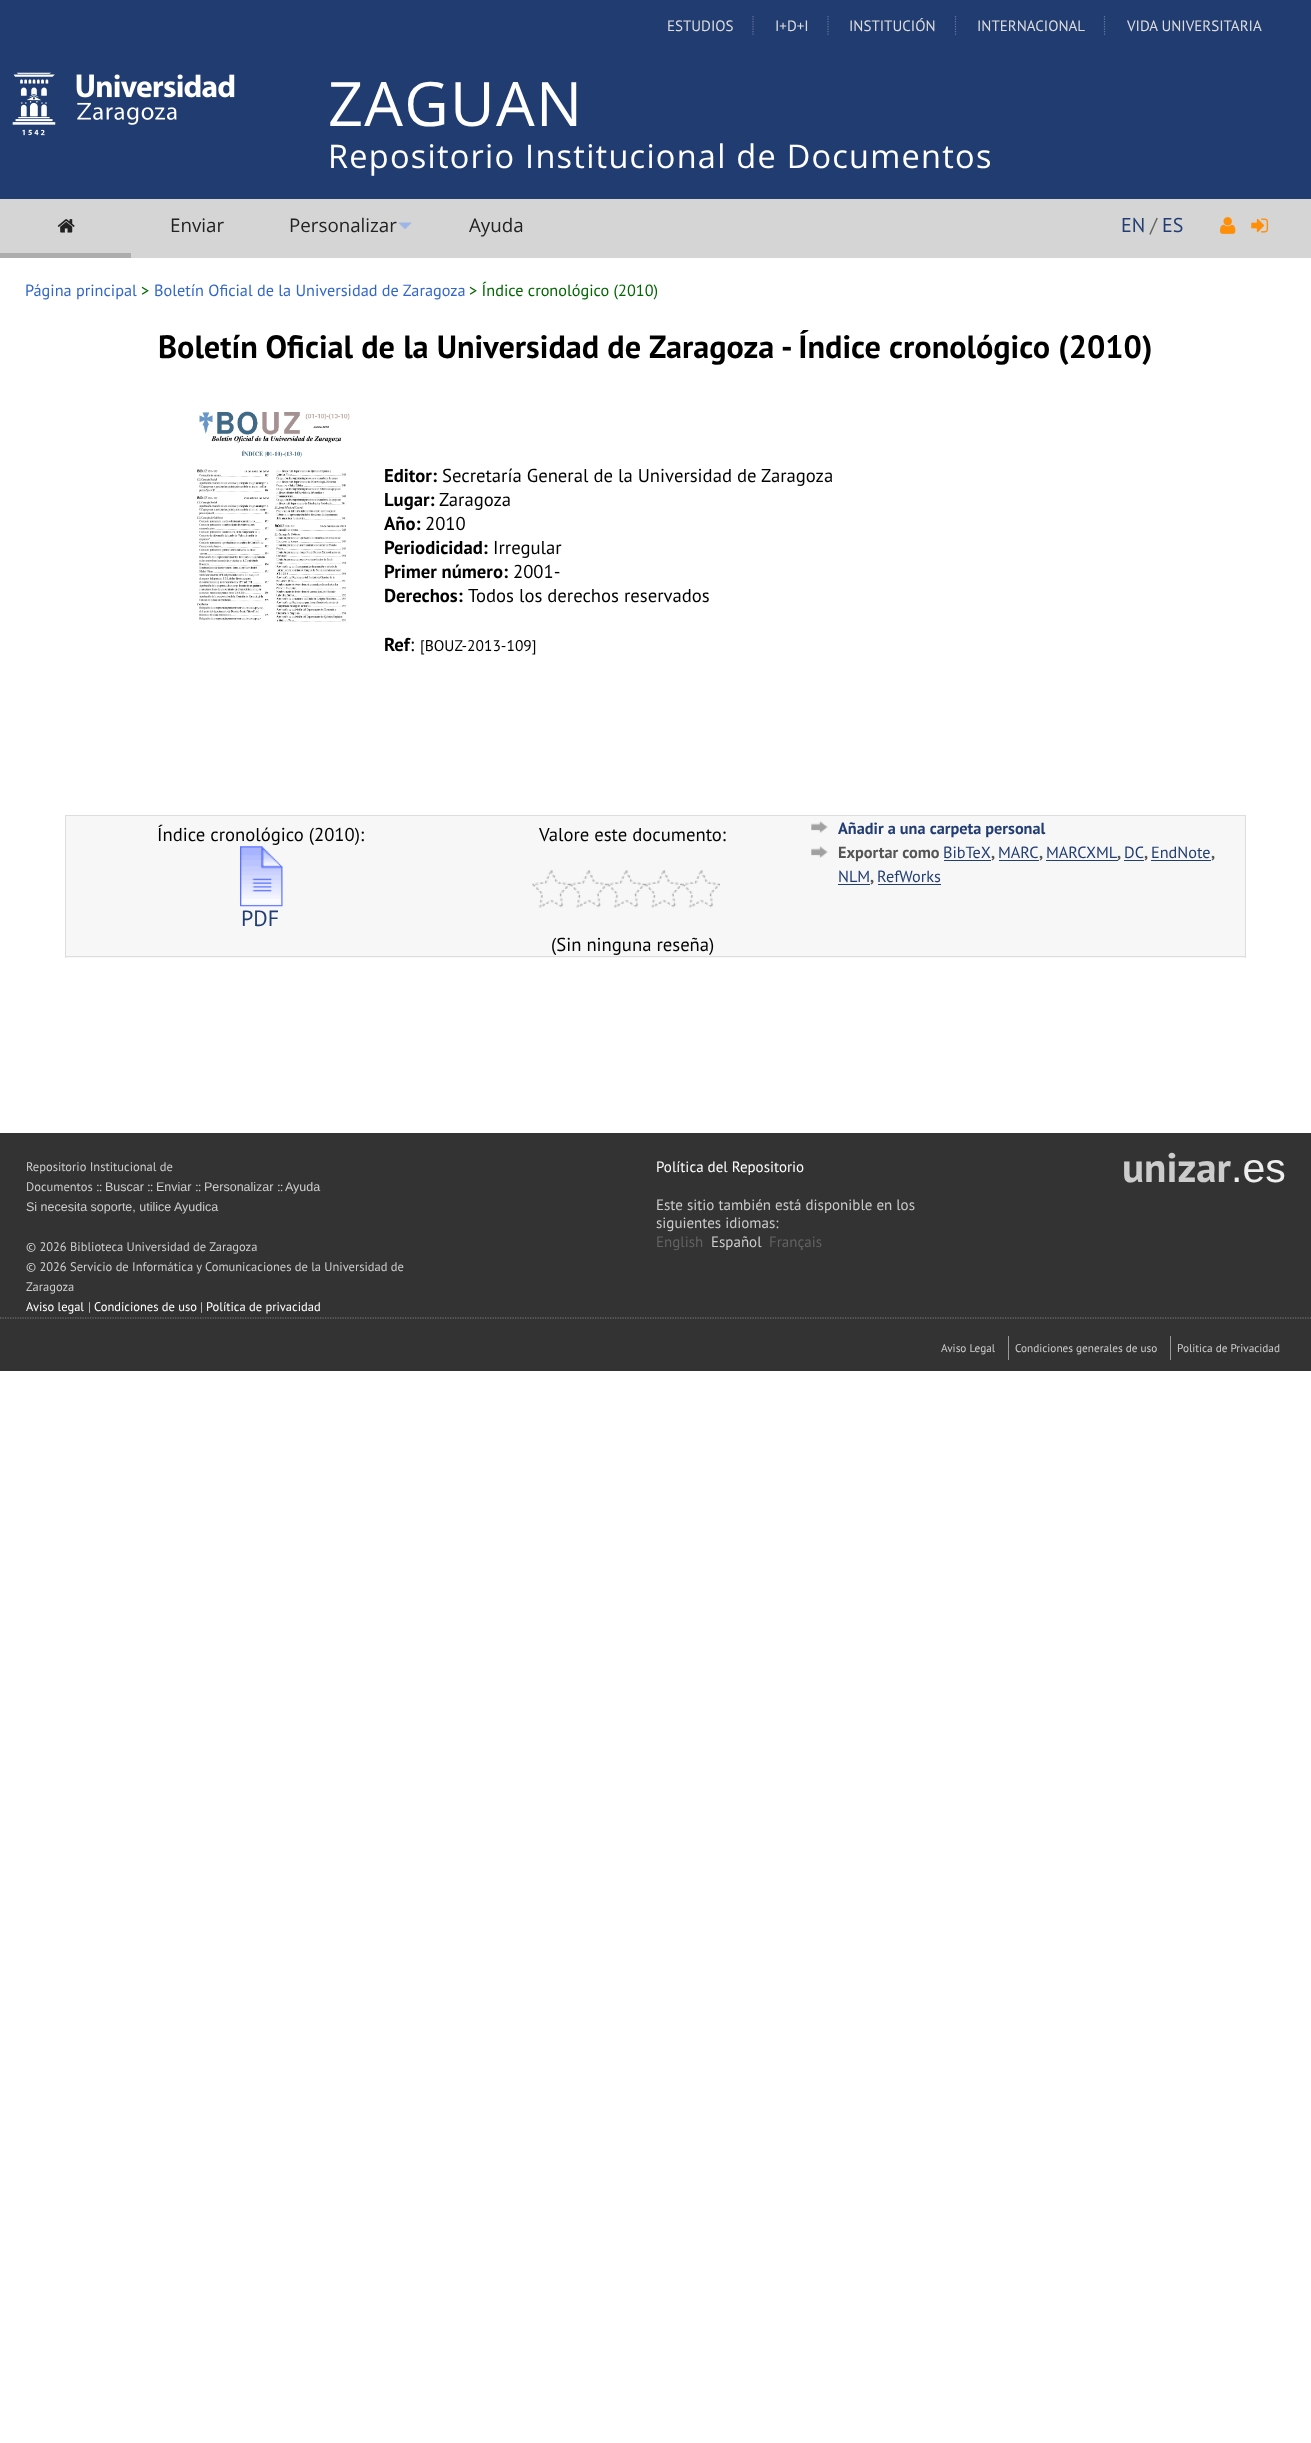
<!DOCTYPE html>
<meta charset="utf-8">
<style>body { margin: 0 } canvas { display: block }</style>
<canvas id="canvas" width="1311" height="2443"></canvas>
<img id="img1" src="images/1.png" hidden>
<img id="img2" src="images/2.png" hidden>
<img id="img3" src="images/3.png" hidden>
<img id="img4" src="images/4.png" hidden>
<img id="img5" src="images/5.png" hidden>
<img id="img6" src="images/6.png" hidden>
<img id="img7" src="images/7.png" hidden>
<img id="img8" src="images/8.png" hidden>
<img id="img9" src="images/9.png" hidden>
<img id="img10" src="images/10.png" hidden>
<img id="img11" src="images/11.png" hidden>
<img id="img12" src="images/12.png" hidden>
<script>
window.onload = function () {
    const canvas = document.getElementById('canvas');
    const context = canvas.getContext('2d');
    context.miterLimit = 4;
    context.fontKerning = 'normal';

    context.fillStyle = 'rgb(255, 255, 255)';
    context.fillRect(0, 0, 1311, 2443);
    context.fillStyle = 'rgb(33, 60, 112)';
    context.fillRect(0, 0, 1311, 199);
    context.beginPath();
    context.moveTo(753, 16);
    context.lineTo(753, 35);
    context.strokeStyle = 'rgb(100, 119, 157)';
    context.lineWidth = 1.2;
    context.setLineDash([1.25, 1.25]);
    context.stroke();
    context.beginPath();
    context.moveTo(828, 16);
    context.lineTo(828, 35);
    context.stroke();
    context.beginPath();
    context.moveTo(955.5, 16);
    context.lineTo(955.5, 35);
    context.stroke();
    context.beginPath();
    context.moveTo(1104.5, 16);
    context.lineTo(1104.5, 35);
    context.stroke();
    context.drawImage(document.getElementById('img1'), 12, 72, 223, 64);
    context.fillStyle = 'rgb(213, 213, 213)';
    context.fillRect(0, 199, 1311, 59);
    context.fillStyle = 'rgb(173, 173, 173)';
    context.fillRect(0, 253, 131, 5);
    context.drawImage(document.getElementById('img2'), 57, 219, 18, 14);
    context.drawImage(document.getElementById('img3'), 398, 222, 14, 7);
    context.drawImage(document.getElementById('img4'), 1220, 217, 16, 17);
    context.drawImage(document.getElementById('img5'), 1251, 218, 18, 15);
    context.drawImage(document.getElementById('img6'), 197, 411, 153, 211);
    context.fillStyle = 'rgb(247, 247, 247)';
    context.fillRect(66, 816, 1179, 142);
    context.fillStyle = 'rgb(221, 221, 221)';
    context.fillRect(65, 815, 1181, 1);
    context.fillRect(1245, 815, 1, 143);
    context.fillRect(65, 956, 1181, 1);
    context.fillRect(65, 815, 1, 143);
    context.drawImage(document.getElementById('img7'), 240, 846, 43, 61);
    context.drawImage(document.getElementById('img8'), 532, 870, 38, 38);
    context.drawImage(document.getElementById('img9'), 570, 870, 38, 38);
    context.drawImage(document.getElementById('img10'), 607, 870, 38, 38);
    context.drawImage(document.getElementById('img11'), 645, 870, 38, 38);
    context.drawImage(document.getElementById('img10'), 682, 870, 38, 38);
    context.drawImage(document.getElementById('img12'), 811, 821, 17, 12);
    context.drawImage(document.getElementById('img12'), 811, 846, 17, 12);
    context.fillStyle = 'rgb(34, 61, 114)';
    context.fillRect(944, 860, 47, 1);
    context.fillRect(999, 860, 40, 1);
    context.fillRect(1046, 860, 72, 1);
    context.fillRect(1124, 860, 20, 1);
    context.fillRect(1151, 860, 60, 1);
    context.fillRect(838, 884, 32, 1);
    context.fillRect(878, 884, 63, 1);
    context.fillStyle = 'rgb(51, 51, 51)';
    context.fillRect(0, 1133, 1311, 238);
    context.beginPath();
    context.moveTo(-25, 1318);
    context.lineTo(1311, 1318);
    context.strokeStyle = 'rgb(128, 128, 128)';
    context.stroke();
    context.fillStyle = 'rgb(153, 153, 153)';
    context.fillRect(1008, 1336, 1, 24);
    context.fillRect(1170, 1336, 1, 24);
    context.font = '15px PT Sans';
    context.fillStyle = 'rgb(221, 221, 221)';
    context.fillText('ESTUDIOS', 667, 31);
    context.fillText('I+D+I', 775, 31);
    context.fillText('INSTITUCIÓN', 849, 31);
    context.fillText('INTERNACIONAL', 977, 31);
    context.fillText('VIDA UNIVERSITARIA', 1127, 31);
    context.letterSpacing = '1.25px';
    context.font = '61.25px Open Sans';
    context.fillStyle = 'rgb(255, 255, 255)';
    context.fillText('ZAGUAN', 328, 126);
    context.font = '32.5px Open Sans';
    context.fillText('Repositorio Institucional de Documentos', 328, 168);
    context.letterSpacing = '0px';
    context.font = '18.75px Open Sans';
    context.fillStyle = 'rgb(34, 34, 34)';
    context.fillText('Enviar', 170, 232);
    context.fillText('Personalizar', 289, 232);
    context.fillText('Ayuda', 469, 232);
    context.font = '20px PT Sans';
    context.fillStyle = 'rgb(34, 61, 114)';
    context.fillText('EN', 1121, 232);
    context.fillStyle = 'rgb(98, 98, 98)';
    context.fillText('/', 1150, 232);
    context.fillStyle = 'rgb(34, 61, 114)';
    context.fillText('ES', 1162, 232);
    context.font = '16.25px PT Sans';
    context.fillStyle = 'rgb(51, 102, 204)';
    context.fillText('Página principal', 25, 296);
    context.fillStyle = 'rgb(0, 102, 0)';
    context.fillText('>', 141, 296);
    context.fillStyle = 'rgb(51, 102, 204)';
    context.fillText('Boletín Oficial de la Universidad de Zaragoza', 154, 296);
    context.fillStyle = 'rgb(0, 102, 0)';
    context.fillText('> Índice cronológico (2010)', 469, 296);
    context.font = 'bold 32.25px PT Sans';
    context.fillStyle = 'rgb(0, 0, 0)';
    context.fillText('Boletín Oficial de la Universidad de Zaragoza - Índice cronológico (2010)', 158, 358);
    context.font = 'bold 18.7px PT Sans';
    context.fillText('Editor:', 384, 482);
    context.font = '18.7px PT Sans';
    context.fillText('Secretaría General de la Universidad de Zaragoza', 442, 482);
    context.font = 'bold 18.7px PT Sans';
    context.fillText('Lugar:', 384, 506);
    context.font = '18.7px PT Sans';
    context.fillText('Zaragoza', 439, 506);
    context.font = 'bold 18.7px PT Sans';
    context.fillText('Año:', 384, 530);
    context.font = '18.7px PT Sans';
    context.fillText('2010', 425, 530);
    context.font = 'bold 18.7px PT Sans';
    context.fillText('Periodicidad:', 384, 554);
    context.font = '18.7px PT Sans';
    context.fillText('Irregular', 493, 554);
    context.font = 'bold 18.7px PT Sans';
    context.fillText('Primer número:', 384, 578);
    context.font = '18.7px PT Sans';
    context.fillText('2001-', 513, 578);
    context.font = 'bold 18.7px PT Sans';
    context.fillText('Derechos:', 384, 602);
    context.font = '18.7px PT Sans';
    context.fillText('Todos los derechos reservados', 468, 602);
    context.font = 'bold 18.7px PT Sans';
    context.fillText('Ref', 384, 651);
    context.font = '18.7px PT Sans';
    context.fillText(':', 410, 651);
    context.font = '15.5px PT Sans';
    context.fillText('[BOUZ-2013-109]', 420, 651);
    context.font = '18.7px PT Sans';
    context.fillText('Índice cronológico (2010):', 157, 841);
    context.font = '22px PT Sans';
    context.fillStyle = 'rgb(34, 61, 114)';
    context.fillText('PDF', 241, 926);
    context.font = '18.7px PT Sans';
    context.fillStyle = 'rgb(0, 0, 0)';
    context.fillText('Valore este documento:', 539, 841);
    context.fillText('(Sin ninguna reseña)', 551, 951);
    context.font = 'bold 16.25px PT Sans';
    context.fillStyle = 'rgb(34, 61, 114)';
    context.fillText('Añadir a una carpeta personal', 838, 834);
    context.fillStyle = 'rgb(85, 85, 85)';
    context.fillText('Exportar como', 838, 858);
    context.font = '16.25px PT Sans';
    context.fillStyle = 'rgb(34, 61, 114)';
    context.fillText('BibTeX', 943, 858);
    context.font = 'bold 16.25px PT Sans';
    context.fillStyle = 'rgb(85, 85, 85)';
    context.fillText(',', 991, 858);
    context.font = '16.25px PT Sans';
    context.fillStyle = 'rgb(34, 61, 114)';
    context.fillText('MARC', 998, 858);
    context.font = 'bold 16.25px PT Sans';
    context.fillStyle = 'rgb(85, 85, 85)';
    context.fillText(',', 1039, 858);
    context.font = '16.25px PT Sans';
    context.fillStyle = 'rgb(34, 61, 114)';
    context.fillText('MARCXML', 1046, 858);
    context.font = 'bold 16.25px PT Sans';
    context.fillStyle = 'rgb(85, 85, 85)';
    context.fillText(',', 1117, 858);
    context.font = '16.25px PT Sans';
    context.fillStyle = 'rgb(34, 61, 114)';
    context.fillText('DC', 1124, 858);
    context.font = 'bold 16.25px PT Sans';
    context.fillStyle = 'rgb(85, 85, 85)';
    context.fillText(',', 1144, 858);
    context.font = '16.25px PT Sans';
    context.fillStyle = 'rgb(34, 61, 114)';
    context.fillText('EndNote', 1151, 858);
    context.font = 'bold 16.25px PT Sans';
    context.fillStyle = 'rgb(85, 85, 85)';
    context.fillText(',', 1211, 858);
    context.font = '16.25px PT Sans';
    context.fillStyle = 'rgb(34, 61, 114)';
    context.fillText('NLM', 838, 882);
    context.font = 'bold 16.25px PT Sans';
    context.fillStyle = 'rgb(85, 85, 85)';
    context.fillText(',', 870, 882);
    context.font = '16.25px PT Sans';
    context.fillStyle = 'rgb(34, 61, 114)';
    context.fillText('RefWorks', 877, 882);
    context.font = '12.5px PT Sans';
    context.fillStyle = 'rgb(204, 204, 204)';
    context.fillText('Repositorio Institucional de', 26, 1171);
    context.fillText('Documentos ::', 26, 1191);
    context.font = '12.5px Liberation Sans';
    context.fillText('Buscar', 105, 1191);
    context.font = '12.5px PT Sans';
    context.fillText('::', 147, 1191);
    context.font = '12.5px Liberation Sans';
    context.fillText('Enviar', 156, 1191);
    context.font = '12.5px PT Sans';
    context.fillText('::', 195, 1191);
    context.font = '12.5px Liberation Sans';
    context.fillText('Personalizar', 204, 1191);
    context.font = '12.5px PT Sans';
    context.fillText('::', 277, 1191);
    context.font = '12.5px Liberation Sans';
    context.fillText('Ayuda', 285, 1191);
    context.fillText('Si necesita soporte, utilice Ayudica', 26, 1211);
    context.font = '12.5px PT Sans';
    context.fillText('© 2026 Biblioteca Universidad de Zaragoza', 26, 1251);
    context.fillText('© 2026 Servicio de Informática y Comunicaciones de la Universidad de', 26, 1271);
    context.fillText('Zaragoza', 26, 1291);
    context.fillStyle = 'rgb(255, 255, 255)';
    context.fillText('Aviso legal', 26, 1311);
    context.fillStyle = 'rgb(204, 204, 204)';
    context.fillText('|', 88, 1311);
    context.fillStyle = 'rgb(255, 255, 255)';
    context.fillText('Condiciones de uso', 94, 1311);
    context.fillStyle = 'rgb(204, 204, 204)';
    context.fillText('|', 200, 1311);
    context.fillStyle = 'rgb(255, 255, 255)';
    context.fillText('Política de privacidad', 206, 1311);
    context.font = '15px PT Sans';
    context.fillText('Política del Repositorio', 656, 1172);
    context.fillStyle = 'rgb(204, 204, 204)';
    context.fillText('Este sitio también está disponible en los', 656, 1210);
    context.fillText('siguientes idiomas:', 656, 1228);
    context.fillStyle = 'rgb(98, 98, 98)';
    context.fillText('English', 656, 1247);
    context.fillStyle = 'rgb(204, 204, 204)';
    context.fillText('Español', 711, 1247);
    context.fillStyle = 'rgb(98, 98, 98)';
    context.fillText('Français', 769, 1247);
    context.font = 'bold 41px PT Sans';
    context.fillStyle = 'rgb(204, 204, 204)';
    context.fillText('unizar', 1122, 1182);
    context.font = '41px Liberation Sans';
    context.fillStyle = 'rgb(238, 238, 238)';
    context.fillText('.es', 1231, 1182);
    context.font = '11.25px PT Sans';
    context.fillStyle = 'rgb(204, 204, 204)';
    context.fillText('Aviso Legal', 941, 1352);
    context.fillText('Condiciones generales de uso', 1015, 1352);
    context.fillText('Politica de Privacidad', 1177, 1352);
};
</script>
